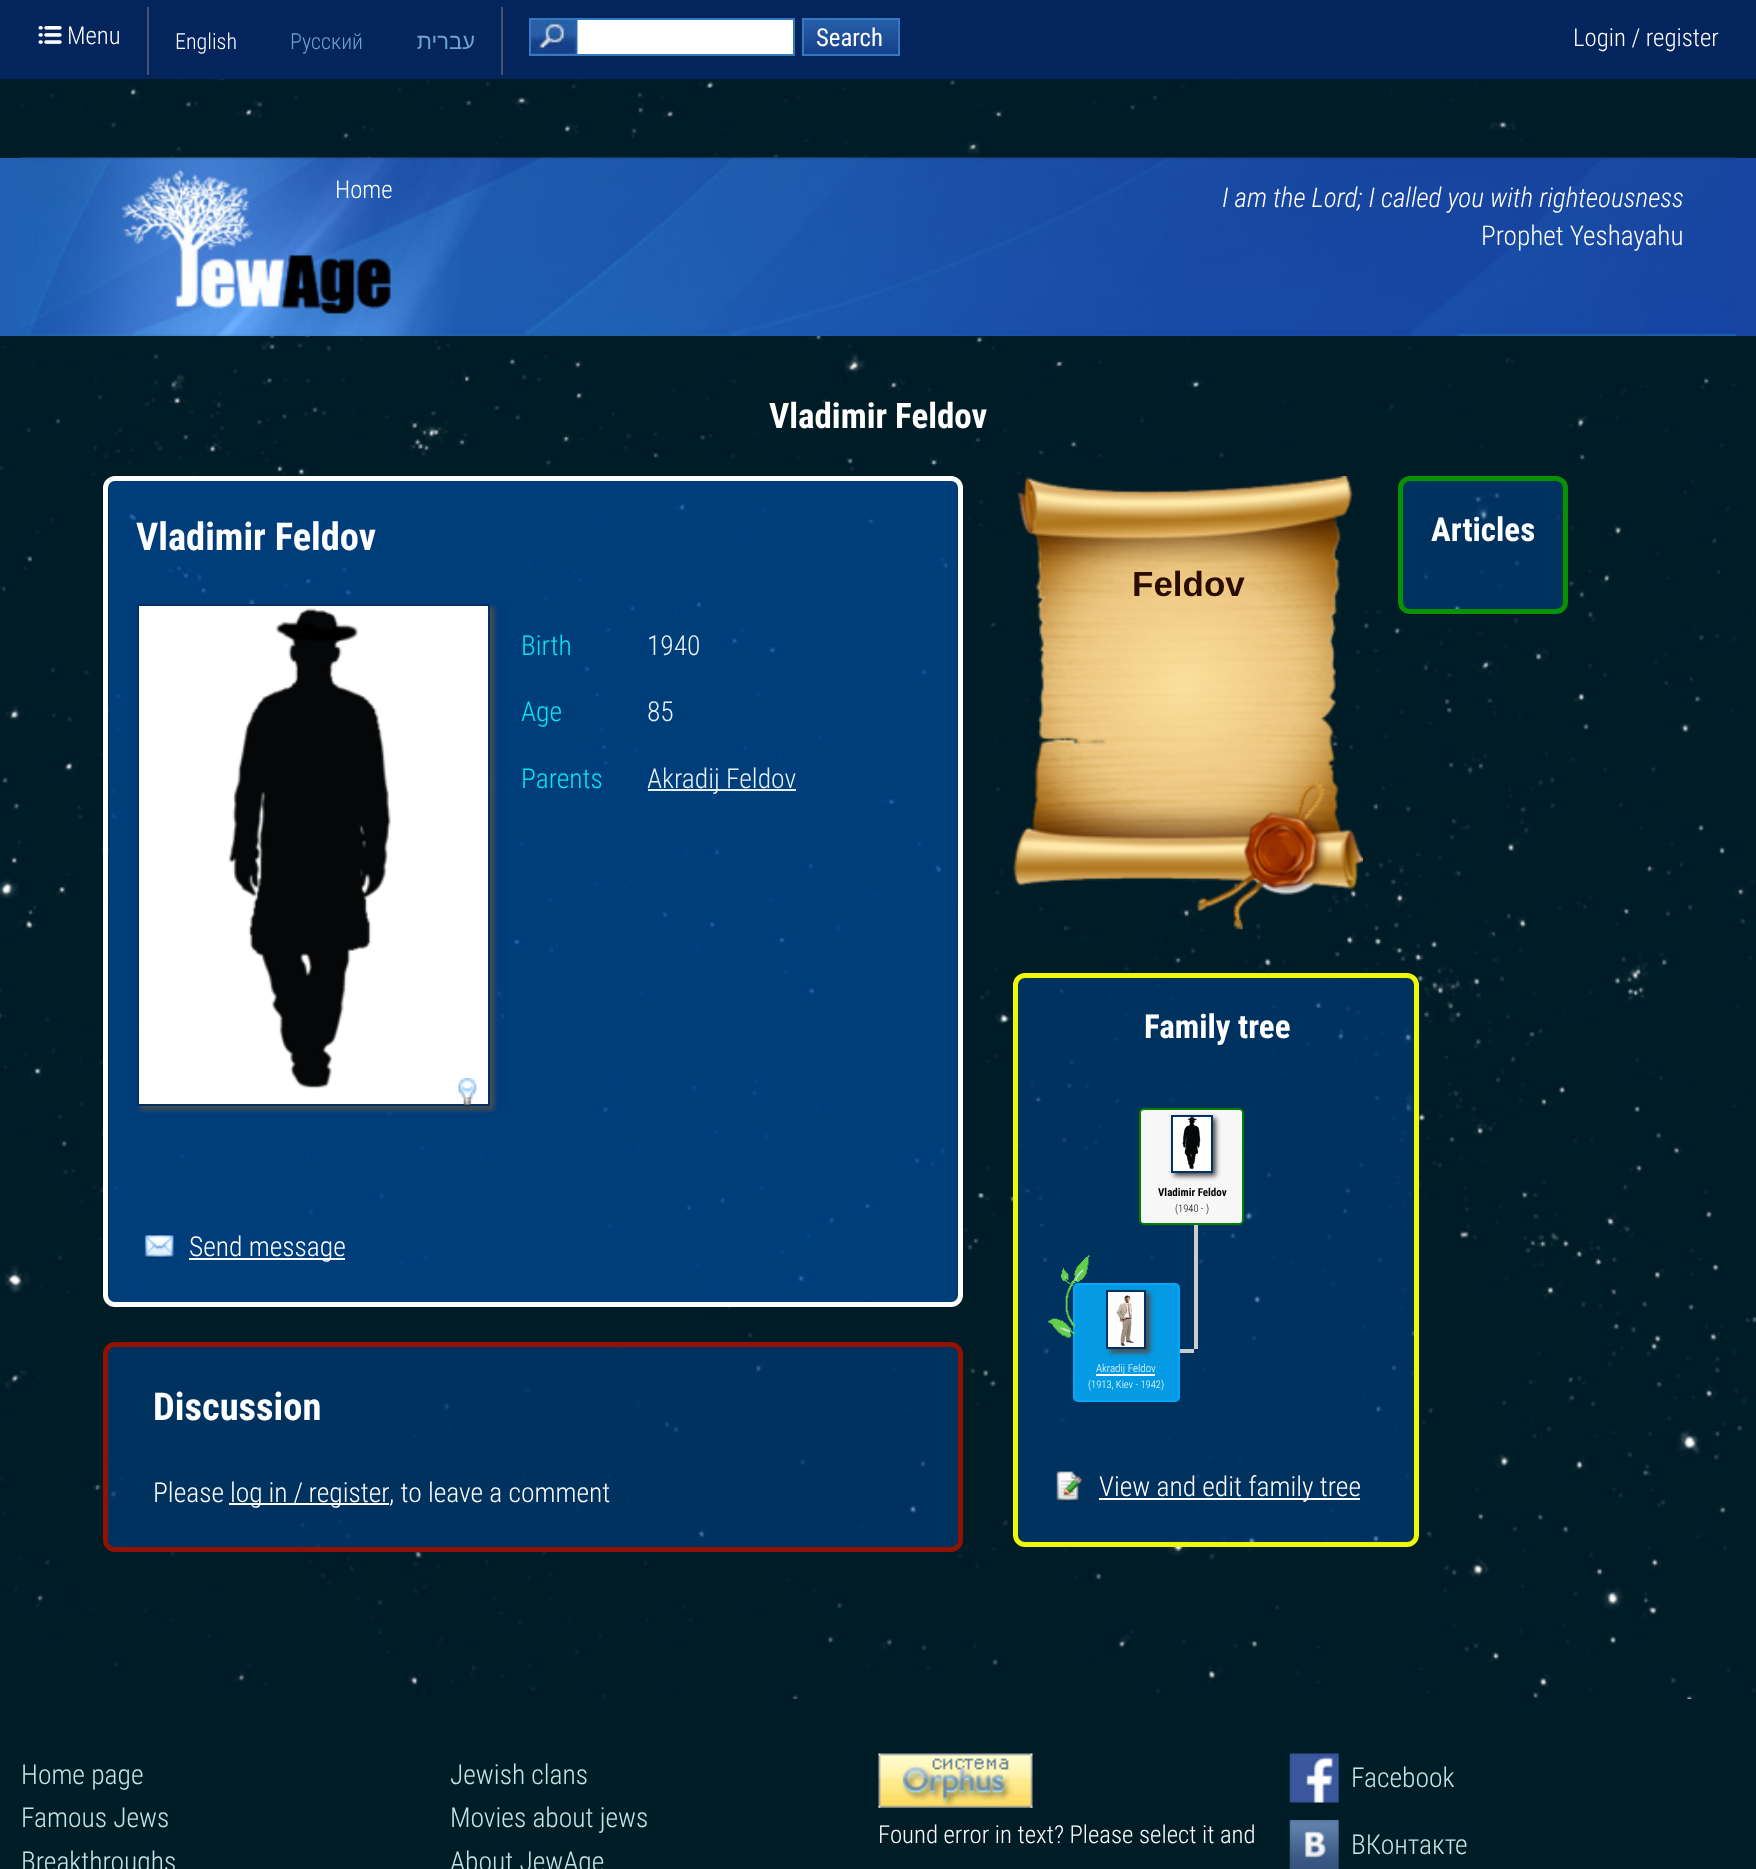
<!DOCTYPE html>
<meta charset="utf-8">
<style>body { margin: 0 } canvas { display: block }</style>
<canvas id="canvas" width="1756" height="1869"></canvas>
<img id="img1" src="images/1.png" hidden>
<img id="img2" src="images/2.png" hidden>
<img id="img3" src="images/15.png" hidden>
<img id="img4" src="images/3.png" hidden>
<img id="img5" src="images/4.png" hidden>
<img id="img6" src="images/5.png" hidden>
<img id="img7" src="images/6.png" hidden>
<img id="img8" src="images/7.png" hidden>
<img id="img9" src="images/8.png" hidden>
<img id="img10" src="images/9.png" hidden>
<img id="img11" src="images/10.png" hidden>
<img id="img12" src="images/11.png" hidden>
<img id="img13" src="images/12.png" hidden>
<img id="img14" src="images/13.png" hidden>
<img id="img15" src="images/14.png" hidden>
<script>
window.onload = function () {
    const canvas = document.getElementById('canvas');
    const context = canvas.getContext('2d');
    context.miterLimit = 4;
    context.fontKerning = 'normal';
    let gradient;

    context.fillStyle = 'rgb(0, 28, 39)';
    context.fillRect(0, 0, 1756, 1869);
    context.fillStyle = 'rgb(4, 36, 93)';
    context.fillRect(0, 0, 1756, 79);
    context.drawImage(document.getElementById('img1'), 38, 26, 24, 18);
    context.fillStyle = 'rgb(68, 83, 113)';
    context.fillRect(501, 7, 2, 68);
    context.fillRect(147, 7, 2, 68);
    context.fillStyle = 'rgb(255, 255, 255)';
    context.fillRect(531, 20, 262, 34);
    context.drawImage(document.getElementById('img2'), 531, 20, 47, 34);
    context.strokeStyle = 'rgb(51, 121, 192)';
    context.lineWidth = 2;
    context.strokeRect(530, 19, 264, 36);
    gradient = context.createLinearGradient(851, 19, 851, 54);
    gradient.addColorStop(0, 'rgb(40, 96, 170)');
    gradient.addColorStop(1, 'rgb(21, 63, 137)');
    context.fillStyle = gradient;
    context.fillRect(804, 20, 94, 34);
    context.strokeRect(803, 19, 96, 36);
    context.drawImage(document.getElementById('img3'), 0, 79, 1756, 1620);
    context.fillStyle = 'rgb(33, 98, 180)';
    context.fillRect(0, 158, 21, 178);
    context.drawImage(document.getElementById('img4'), 21, 157, 1715, 179);
    context.fillStyle = 'rgb(24, 69, 162)';
    context.fillRect(1736, 158, 20, 178);
    context.fillStyle = 'rgba(0, 71, 152, 0.5)';
    context.beginPath();
    context.roundRect(105.5, 478.5, 855, 826, 9.5);
    context.fill();
    context.strokeStyle = 'rgb(255, 255, 255)';
    context.lineWidth = 5;
    context.stroke();
    context.beginPath();
    context.roundRect(109, 481, 848, 821, 7);
    context.fill();
    context.fillStyle = 'rgb(77, 77, 77)';
    context.filter = 'blur(2.5px)';
    context.beginPath();
    context.rect(140, 607, 354, 503);
    context.fill();
    context.filter = 'none';
    context.fillStyle = 'rgb(255, 255, 255)';
    context.beginPath();
    context.rect(138, 605, 351, 500);
    context.fill();
    context.strokeStyle = 'rgb(0, 49, 99)';
    context.lineWidth = 2;
    context.stroke();
    context.drawImage(document.getElementById('img5'), 228, 608, 163, 481);
    context.drawImage(document.getElementById('img6'), 458, 1078, 19, 30);
    context.fillStyle = 'rgb(230, 241, 242)';
    context.fillRect(648, 789, 148, 2);
    context.drawImage(document.getElementById('img7'), 144, 1235, 30, 24);
    context.fillStyle = 'rgb(255, 255, 255)';
    context.fillRect(189, 1258, 156, 2);
    context.drawImage(document.getElementById('img8'), 1013, 476, 351, 454);
    context.fillStyle = 'rgba(0, 71, 152, 0.5)';
    context.beginPath();
    context.roundRect(1400.5, 478.5, 165, 133, 9.5);
    context.fill();
    context.strokeStyle = 'rgb(8, 146, 1)';
    context.lineWidth = 5;
    context.stroke();
    context.beginPath();
    context.roundRect(105.5, 1344.5, 855, 205, 9.5);
    context.fill();
    context.strokeStyle = 'rgb(146, 18, 1)';
    context.stroke();
    context.fillStyle = 'rgb(255, 255, 255)';
    context.fillRect(229, 1503, 160, 2);
    context.fillStyle = 'rgba(0, 71, 152, 0.5)';
    context.beginPath();
    context.roundRect(1015.5, 975.5, 401, 569, 9.5);
    context.fill();
    context.strokeStyle = 'rgb(240, 249, 5)';
    context.stroke();
    context.fillStyle = 'rgb(247, 247, 247)';
    context.beginPath();
    context.roundRect(1140, 1109, 103, 115, 4);
    context.fill();
    context.strokeStyle = 'rgb(0, 128, 0)';
    context.lineWidth = 2;
    context.stroke();
    context.fillStyle = 'rgb(77, 77, 77)';
    context.filter = 'blur(2.5px)';
    context.beginPath();
    context.rect(1174, 1118, 42, 58);
    context.fill();
    context.filter = 'none';
    context.fillStyle = 'rgb(255, 255, 255)';
    context.beginPath();
    context.rect(1172, 1116, 40, 56);
    context.fill();
    context.strokeStyle = 'rgb(0, 49, 99)';
    context.stroke();
    context.drawImage(document.getElementById('img9'), 1182, 1116, 19, 53);
    context.fillStyle = 'rgb(204, 204, 204)';
    context.fillRect(1194, 1225, 4, 124);
    context.fillRect(1180, 1349, 14, 4);
    context.fillStyle = 'rgb(4, 155, 228)';
    context.beginPath();
    context.roundRect(1074, 1284, 105, 117, 4);
    context.fill();
    context.strokeStyle = 'rgb(3, 167, 254)';
    context.stroke();
    context.drawImage(document.getElementById('img10'), 1048, 1255, 42, 83);
    context.fillStyle = 'rgb(77, 77, 77)';
    context.filter = 'blur(2.5px)';
    context.beginPath();
    context.rect(1110, 1293, 40, 60);
    context.fill();
    context.filter = 'none';
    context.fillStyle = 'rgb(255, 255, 255)';
    context.beginPath();
    context.rect(1107, 1291, 38, 57);
    context.fill();
    context.strokeStyle = 'rgb(0, 49, 99)';
    context.stroke();
    context.drawImage(document.getElementById('img11'), 1116, 1295, 18, 52);
    context.fillRect(1096, 1374, 59, 2);
    context.drawImage(document.getElementById('img12'), 1056, 1471, 26, 31);
    context.fillRect(1099, 1498, 261, 2);
    context.drawImage(document.getElementById('img13'), 878, 1753, 155, 55);
    context.drawImage(document.getElementById('img14'), 1289, 1753, 50, 50);
    context.drawImage(document.getElementById('img15'), 1289, 1820, 50, 49);
    context.font = '300 24.75px Roboto Condensed';
    context.fillText('Menu', 67, 44);
    context.font = '300 22px Roboto Condensed';
    context.fillText('English', 175, 49);
    context.fillStyle = 'rgb(111, 161, 209)';
    context.fillText('Русский', 290, 49);
    context.direction = 'rtl';
    context.font = '22px Liberation Sans';
    context.fillText('עברית', 475, 49);
    context.direction = 'ltr';
    context.font = '24.75px Roboto Condensed';
    context.fillStyle = 'rgb(255, 255, 255)';
    context.fillText('Search', 816, 46);
    context.font = '300 24.75px Roboto Condensed';
    context.fillText('Login / register', 1573, 46);
    context.fillText('Home', 335, 198);
    context.font = 'italic 300 27.2px Roboto Condensed';
    context.fillText('I am the Lord; I called you with righteousness', 1222, 207);
    context.font = '300 27.2px Roboto Condensed';
    context.fillText('Prophet Yeshayahu', 1481, 245);
    context.font = 'bold 35px Roboto Condensed';
    context.fillText('Vladimir Feldov', 769, 428);
    context.font = 'bold 38.5px Roboto Condensed';
    context.fillText('Vladimir Feldov', 136, 550);
    context.font = '300 27.5px Roboto Condensed';
    context.fillStyle = 'rgb(7, 227, 242)';
    context.fillText('Birth', 521, 655);
    context.fillStyle = 'rgb(230, 241, 242)';
    context.fillText('1940', 647, 655);
    context.fillStyle = 'rgb(7, 227, 242)';
    context.fillText('Age', 521, 721);
    context.fillStyle = 'rgb(230, 241, 242)';
    context.fillText('85', 647, 721);
    context.fillStyle = 'rgb(7, 227, 242)';
    context.fillText('Parents', 521, 788);
    context.fillStyle = 'rgb(230, 241, 242)';
    context.fillText('Akradij Feldov', 647, 788);
    context.fillStyle = 'rgb(255, 255, 255)';
    context.fillText('Send message', 189, 1256);
    context.font = 'bold 35px Liberation Sans';
    context.fillStyle = 'rgb(42, 12, 1)';
    context.fillText('Feldov', 1132, 596);
    context.font = 'bold 33px Roboto Condensed';
    context.fillStyle = 'rgb(255, 255, 255)';
    context.fillText('Articles', 1431, 541);
    context.font = 'bold 38.5px Roboto Condensed';
    context.fillText('Discussion', 153, 1420);
    context.font = '300 27.5px Roboto Condensed';
    context.fillText('Please', 153, 1502);
    context.wordSpacing = '-0.5px';
    context.fillText('log in / register', 230, 1502);
    context.wordSpacing = '0px';
    context.fillText(', to leave a comment', 389, 1502);
    context.font = 'bold 33px Roboto Condensed';
    context.fillText('Family tree', 1144, 1038);
    context.font = 'bold 11px Roboto Condensed';
    context.fillStyle = 'rgb(0, 0, 0)';
    context.fillText('Vladimir Feldov', 1158, 1196);
    context.font = '300 10.5px Roboto Condensed';
    context.fillText('(1940 - )', 1175, 1212);
    context.font = '300 11px Roboto Condensed';
    context.fillStyle = 'rgb(255, 255, 255)';
    context.fillText('Akradij Feldov', 1096, 1372);
    context.font = '300 10.5px Roboto Condensed';
    context.fillText('(1913, Kiev - 1942)', 1088, 1388);
    context.font = '300 27.5px Roboto Condensed';
    context.fillText('View and edit family tree', 1099, 1496);
    context.fillStyle = 'rgb(195, 230, 226)';
    context.fillText('Home page', 21, 1784);
    context.fillText('Famous Jews', 21, 1827);
    context.fillText('Breakthroughs', 21, 1871);
    context.fillText('Jewish clans', 450, 1784);
    context.fillText('Movies about jews', 450, 1827);
    context.fillText('About JewAge', 450, 1871);
    context.font = '300 24.75px Roboto Condensed';
    context.fillStyle = 'rgb(255, 255, 255)';
    context.fillText('Found error in text? Please select it and', 878, 1843);
    context.font = '300 27.5px Roboto Condensed';
    context.fillStyle = 'rgb(195, 230, 226)';
    context.fillText('Facebook', 1351, 1787);
    context.fillText('ВКонтакте', 1351, 1854);
};
</script>
